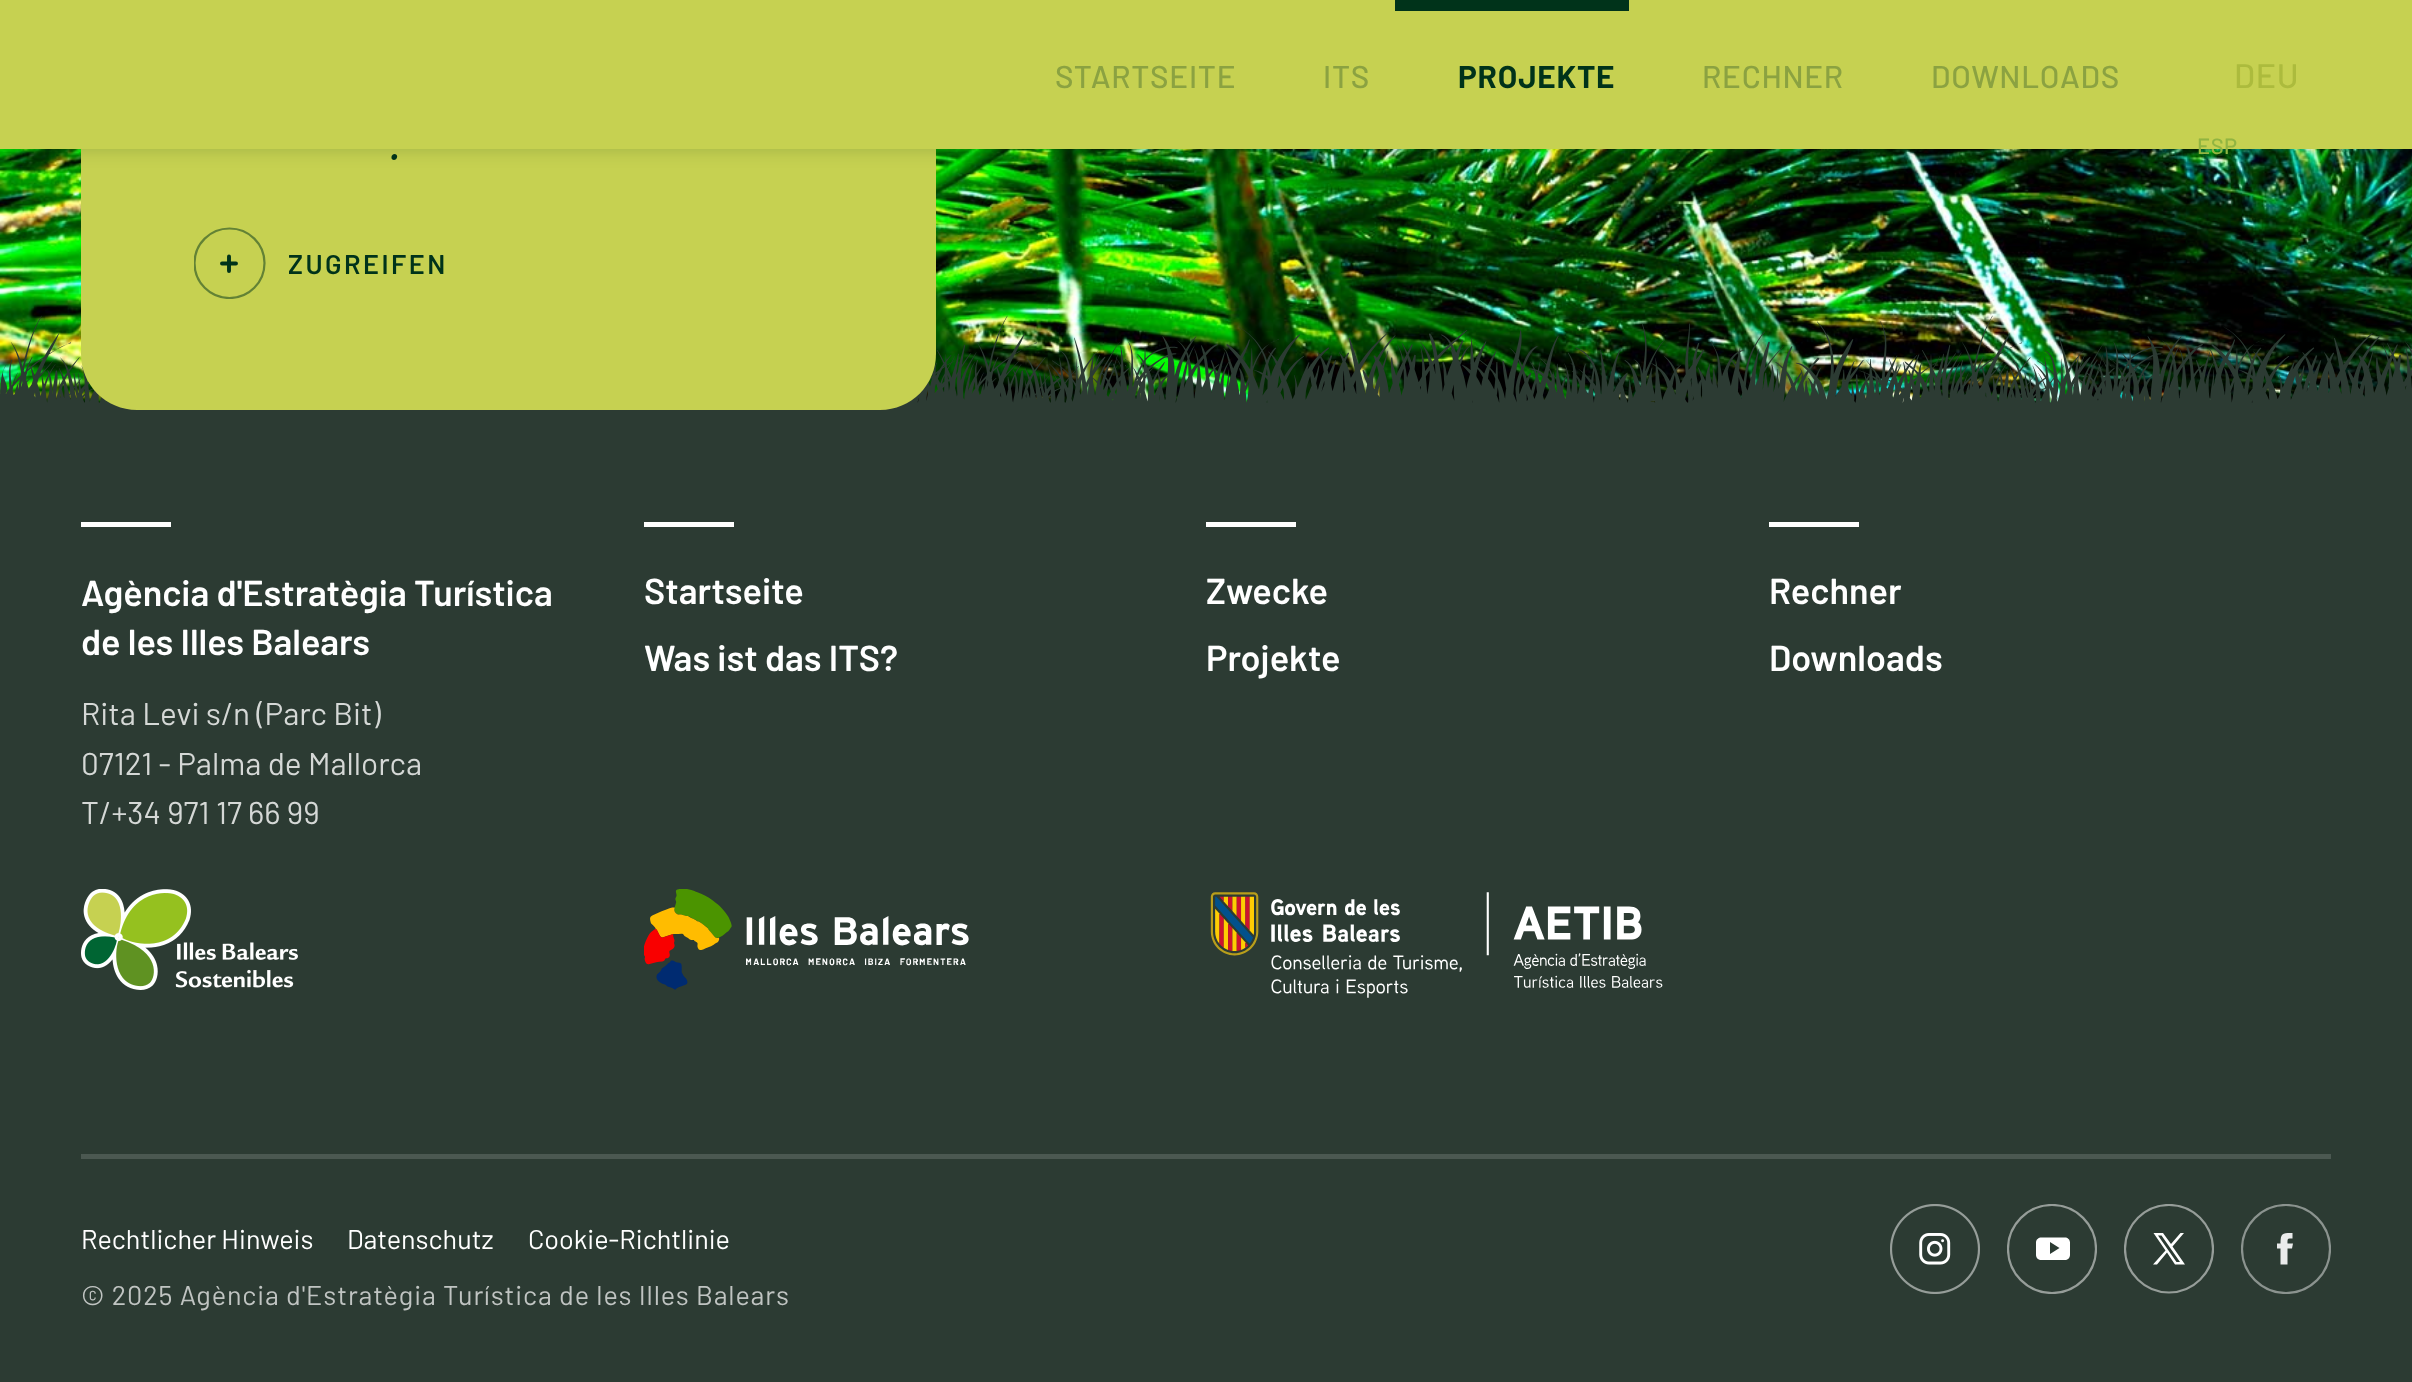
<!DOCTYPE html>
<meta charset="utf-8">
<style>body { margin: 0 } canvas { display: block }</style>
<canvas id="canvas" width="2412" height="1382"></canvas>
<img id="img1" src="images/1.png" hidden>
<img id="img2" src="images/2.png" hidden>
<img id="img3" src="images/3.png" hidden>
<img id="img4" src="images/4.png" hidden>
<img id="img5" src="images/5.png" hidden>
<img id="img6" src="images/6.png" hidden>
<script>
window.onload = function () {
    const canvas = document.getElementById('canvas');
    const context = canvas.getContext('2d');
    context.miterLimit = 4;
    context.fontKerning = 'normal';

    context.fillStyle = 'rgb(255, 255, 255)';
    context.fillRect(0, 0, 2412, 1382);
    context.drawImage(document.getElementById('img1'), 0, 149, 2412, 254);
    context.drawImage(document.getElementById('img2'), 0, 315, 2412, 95);
    context.fillStyle = 'rgb(198, 209, 81)';
    context.beginPath();
    context.moveTo(81, -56);
    context.lineTo(936, -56);
    context.lineTo(936, 354);
    context.bezierCurveTo(936, 385, 911, 410, 880, 410);
    context.lineTo(137, 410);
    context.bezierCurveTo(106, 410, 81, 385, 81, 354);
    context.closePath();
    context.fill();
    context.fillStyle = 'rgba(0, 51, 26, 0.2)';
    context.filter = 'blur(9px)';
    context.beginPath();
    context.rect(0, 0, 2412, 149);
    context.fill();
    context.filter = 'none';
    context.fillStyle = 'rgb(198, 209, 81)';
    context.fillRect(0, 0, 2412, 149);
    context.fillStyle = 'rgb(0, 51, 26)';
    context.fillRect(1395, 0, 234, 11);
    context.save();
    context.beginPath();
    context.rect(194, 227, 72, 72);
    context.clip();
    context.beginPath();
    context.moveTo(229.5, 228.5);
    context.bezierCurveTo(210, 228.5, 194.5, 244, 194.5, 263);
    context.bezierCurveTo(194.5, 282.5, 210, 298, 229.5, 298);
    context.bezierCurveTo(249, 298, 264.5, 282.5, 264.5, 263);
    context.bezierCurveTo(264.5, 244, 249, 228.5, 229.5, 228.5);
    context.closePath();
    context.strokeStyle = 'rgb(99, 130, 53)';
    context.lineWidth = 2.2;
    context.stroke();
    context.restore();
    context.beginPath();
    context.moveTo(222, 263.5);
    context.lineTo(236, 263.5);
    context.moveTo(229, 256.5);
    context.lineTo(229, 271);
    context.strokeStyle = 'rgb(0, 51, 26)';
    context.lineWidth = 3.9;
    context.lineCap = 'round';
    context.lineJoin = 'round';
    context.stroke();
    context.fillStyle = 'rgb(44, 59, 51)';
    context.fillRect(0, 410, 2412, 972);
    context.fillStyle = 'rgb(255, 255, 255)';
    context.fillRect(81, 522, 90, 5);
    context.fillRect(644, 522, 90, 5);
    context.fillRect(1206, 522, 90, 5);
    context.fillRect(1769, 522, 90, 5);
    context.drawImage(document.getElementById('img3'), 81, 889, 217, 101);
    context.drawImage(document.getElementById('img4'), 644, 889, 325, 101);
    context.drawImage(document.getElementById('img5'), 1210, 892, 453, 106);
    context.fillStyle = 'rgb(75, 88, 81)';
    context.fillRect(81, 1154, 2250, 5);
    context.drawImage(document.getElementById('img6'), 1890, 1204, 90, 90);
    context.save();
    context.beginPath();
    context.rect(2007, 1204, 90, 90);
    context.clip();
    context.beginPath();
    context.arc(2052, 1249, 44, 0, 2 * Math.PI);
    context.strokeStyle = 'rgb(150, 157, 153)';
    context.lineWidth = 2.2;
    context.stroke();
    context.restore();
    context.fillStyle = 'rgb(255, 255, 255)';
    context.beginPath();
    context.moveTo(2065, 1237.5);
    context.bezierCurveTo(2067.5, 1237.5, 2070, 1239.5, 2070, 1242.5);
    context.lineTo(2070, 1255);
    context.bezierCurveTo(2070, 1258, 2067.5, 1260, 2065, 1260);
    context.lineTo(2041.5, 1260);
    context.bezierCurveTo(2038.5, 1260, 2036, 1258, 2036, 1255);
    context.lineTo(2036, 1242.5);
    context.bezierCurveTo(2036, 1239.5, 2038.5, 1237.5, 2041.5, 1237.5);
    context.closePath();
    context.moveTo(2050, 1242);
    context.lineTo(2050, 1254);
    context.lineTo(2059.5, 1248);
    context.closePath();
    context.fill('evenodd');
    context.save();
    context.beginPath();
    context.rect(2124, 1204, 90, 90);
    context.clip();
    context.beginPath();
    context.moveTo(2169, 1205);
    context.bezierCurveTo(2145, 1205, 2125, 1224.5, 2125, 1249);
    context.bezierCurveTo(2125, 1273, 2145, 1292.5, 2169, 1292.5);
    context.bezierCurveTo(2193, 1292.5, 2213, 1273, 2213, 1249);
    context.bezierCurveTo(2213, 1224.5, 2193, 1205, 2169, 1205);
    context.closePath();
    context.strokeStyle = 'rgb(150, 157, 153)';
    context.lineWidth = 2.2;
    context.lineCap = 'butt';
    context.lineJoin = 'miter';
    context.stroke();
    context.restore();
    context.beginPath();
    context.moveTo(2163, 1233);
    context.lineTo(2153.5, 1233);
    context.lineTo(2165.5, 1250.5);
    context.lineTo(2153, 1264.5);
    context.lineTo(2157, 1264.5);
    context.lineTo(2167, 1252.5);
    context.lineTo(2175, 1264.5);
    context.lineTo(2185, 1264.5);
    context.lineTo(2172.5, 1246.5);
    context.lineTo(2184, 1233);
    context.lineTo(2180.5, 1233);
    context.lineTo(2171, 1244);
    context.closePath();
    context.moveTo(2158, 1235.5);
    context.lineTo(2161.5, 1235.5);
    context.lineTo(2180, 1262);
    context.lineTo(2176.5, 1262);
    context.closePath();
    context.fill('evenodd');
    context.save();
    context.beginPath();
    context.rect(2241, 1204, 90, 90);
    context.clip();
    context.beginPath();
    context.arc(2286, 1249, 44, 0, 2 * Math.PI);
    context.strokeStyle = 'rgb(139, 147, 143)';
    context.lineWidth = 2.2;
    context.stroke();
    context.restore();
    context.fillStyle = 'rgb(234, 235, 235)';
    context.beginPath();
    context.moveTo(2287.5, 1264.5);
    context.lineTo(2280.5, 1264.5);
    context.lineTo(2280.5, 1248.5);
    context.lineTo(2277, 1248.5);
    context.lineTo(2277, 1243.5);
    context.lineTo(2280.5, 1243.5);
    context.bezierCurveTo(2280.5, 1232.5, 2283, 1233, 2292.5, 1233);
    context.lineTo(2292.5, 1238.5);
    context.bezierCurveTo(2287.5, 1238.5, 2287.5, 1238, 2287.5, 1243.5);
    context.lineTo(2293, 1243.5);
    context.lineTo(2292, 1248.5);
    context.lineTo(2287.5, 1248.5);
    context.closePath();
    context.fill('evenodd');
    context.letterSpacing = '0.75px';
    context.font = '500 31.5px Barlow';
    context.fillStyle = 'rgb(139, 162, 65)';
    context.fillText('STARTSEITE', 1055, 88);
    context.fillText('ITS', 1323, 88);
    context.font = 'bold 31.5px Barlow';
    context.fillStyle = 'rgb(0, 51, 26)';
    context.fillText('PROJEKTE', 1458, 88);
    context.font = '500 31.5px Barlow';
    context.fillStyle = 'rgb(139, 162, 65)';
    context.fillText('RECHNER', 1702, 88);
    context.fillText('DOWNLOADS', 1931, 88);
    context.font = '500 34px Barlow';
    context.fillStyle = 'rgb(172, 187, 61)';
    context.fillText('DEU', 2234, 88);
    context.letterSpacing = '0.5px';
    context.font = '500 22px Barlow';
    context.fillStyle = 'rgb(145, 181, 65)';
    context.fillText('ESP', 2197, 154);
    context.letterSpacing = '0px';
    context.font = 'italic 52px Barlow';
    context.fillStyle = 'rgb(0, 51, 26)';
    context.fillText('.', 388, 160);
    context.letterSpacing = '2.5px';
    context.font = '600 27px Barlow';
    context.fillText('ZUGREIFEN', 288, 274);
    context.letterSpacing = '0px';
    context.font = '600 36px Barlow';
    context.fillStyle = 'rgb(255, 255, 255)';
    context.fillText('Agència d\'Estratègia Turística', 81, 606);
    context.fillText('de les Illes Balears', 81, 655);
    context.font = '31.5px Barlow';
    context.fillStyle = 'rgb(213, 216, 214)';
    context.fillText('Rita Levi s/n (Parc Bit)', 81, 725);
    context.fillText('07121 - Palma de Mallorca', 81, 775);
    context.fillText('T/+34 971 17 66 99', 81, 824);
    context.font = '600 36px Barlow';
    context.fillStyle = 'rgb(255, 255, 255)';
    context.fillText('Startseite', 644, 604);
    context.fillText('Was ist das ITS?', 644, 671);
    context.fillText('Zwecke', 1206, 604);
    context.fillText('Projekte', 1206, 671);
    context.fillText('Rechner', 1769, 604);
    context.fillText('Downloads', 1769, 671);
    context.font = '27px Barlow';
    context.fillText('Rechtlicher Hinweis', 81, 1249);
    context.fillText('Datenschutz', 347, 1249);
    context.fillText('Cookie-Richtlinie', 528, 1249);
    context.letterSpacing = '0.9px';
    context.fillStyle = 'rgb(192, 196, 194)';
    context.fillText('© 2025 Agència d\'Estratègia Turística de les Illes Balears', 81, 1305);
};
</script>
